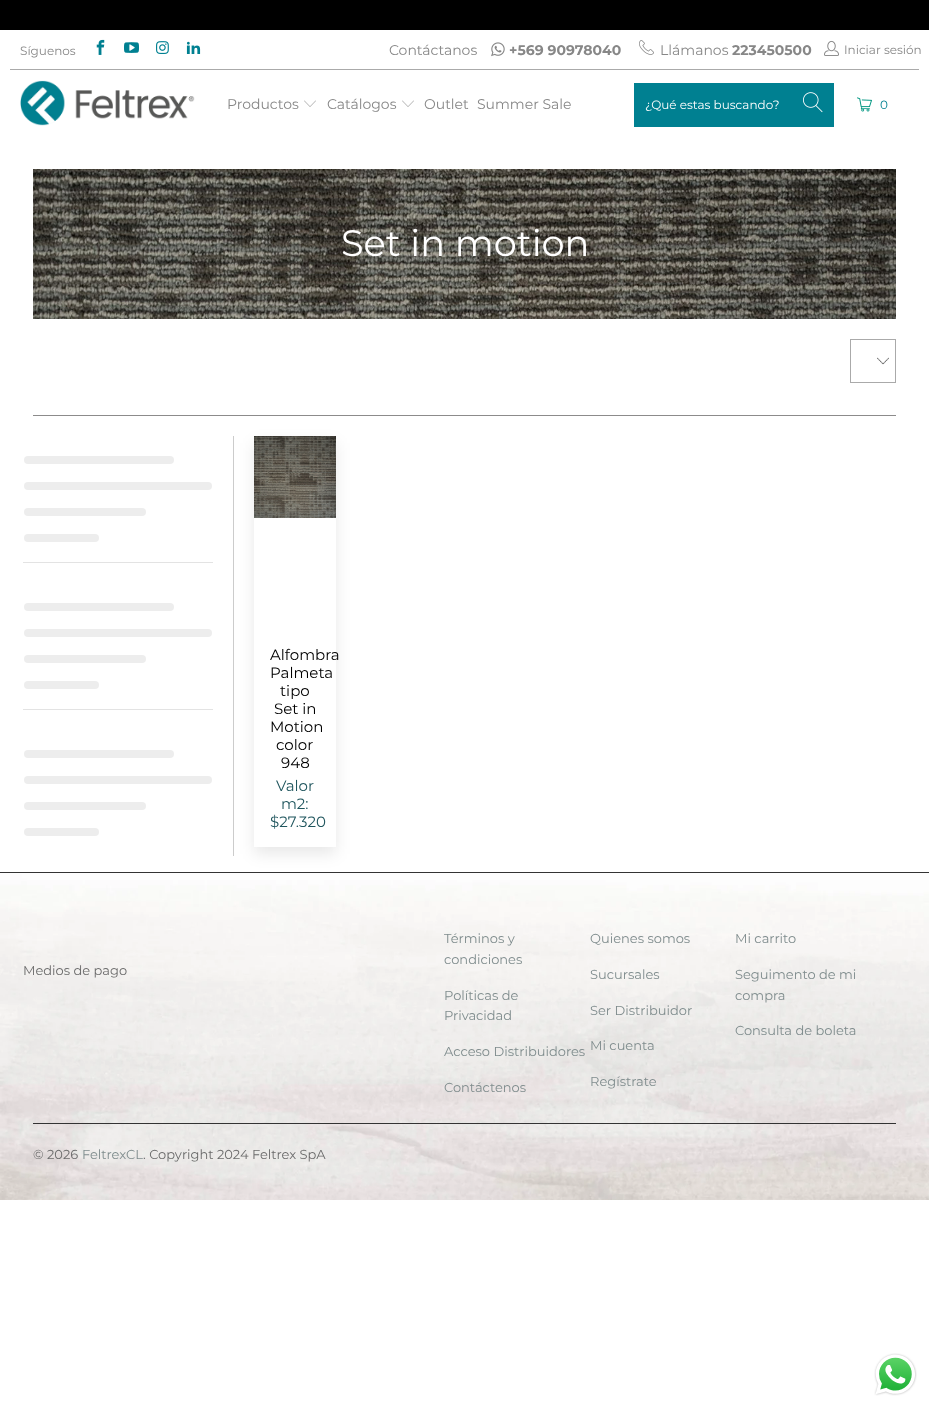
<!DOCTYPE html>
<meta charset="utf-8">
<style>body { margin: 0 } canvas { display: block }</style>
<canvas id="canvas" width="929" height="1408"></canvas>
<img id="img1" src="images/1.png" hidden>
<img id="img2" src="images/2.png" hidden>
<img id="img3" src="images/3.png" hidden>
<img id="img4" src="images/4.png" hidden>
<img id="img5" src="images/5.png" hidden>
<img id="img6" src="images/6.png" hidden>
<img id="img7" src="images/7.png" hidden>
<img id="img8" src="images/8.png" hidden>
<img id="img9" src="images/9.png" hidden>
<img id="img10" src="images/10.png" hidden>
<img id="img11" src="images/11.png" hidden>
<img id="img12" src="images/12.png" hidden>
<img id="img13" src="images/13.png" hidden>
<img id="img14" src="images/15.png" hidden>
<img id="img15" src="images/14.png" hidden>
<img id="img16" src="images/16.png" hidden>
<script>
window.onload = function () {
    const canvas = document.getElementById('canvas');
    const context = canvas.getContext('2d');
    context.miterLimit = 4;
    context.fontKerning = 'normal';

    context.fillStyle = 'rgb(255, 255, 255)';
    context.fillRect(0, 0, 929, 1408);
    context.fillStyle = 'rgb(0, 0, 0)';
    context.fillRect(0, 0, 929, 30);
    context.drawImage(document.getElementById('img1'), 96, 39, 9, 16);
    context.drawImage(document.getElementById('img2'), 124, 42, 15, 11);
    context.drawImage(document.getElementById('img3'), 156, 41, 13, 13);
    context.drawImage(document.getElementById('img4'), 186, 41, 15, 13);
    context.drawImage(document.getElementById('img5'), 491, 42, 14, 15);
    context.drawImage(document.getElementById('img6'), 639, 40, 15, 15);
    context.drawImage(document.getElementById('img7'), 824, 40, 15, 16);
    context.fillStyle = 'rgb(170, 170, 170)';
    context.fillRect(10, 69, 909, 1);
    context.drawImage(document.getElementById('img8'), 20, 80, 175, 46);
    context.drawImage(document.getElementById('img9'), 304, 100, 12, 7);
    context.drawImage(document.getElementById('img9'), 402, 100, 12, 7);
    context.fillStyle = 'rgb(0, 128, 145)';
    context.fillRect(634, 83, 200, 44);
    context.drawImage(document.getElementById('img10'), 803, 92, 20, 21);
    context.drawImage(document.getElementById('img11'), 857, 97, 15, 15);
    context.drawImage(document.getElementById('img12'), 33, 169, 863, 150);
    context.drawImage(document.getElementById('img13'), 877, 357, 12, 8);
    context.strokeStyle = 'rgb(170, 170, 170)';
    context.strokeRect(850.5, 339.5, 45, 43);
    context.fillStyle = 'rgb(140, 139, 139)';
    context.fillRect(33, 415, 863, 1);
    context.fillStyle = 'rgb(204, 204, 204)';
    context.fillRect(233, 436, 1, 420);
    context.fillStyle = 'rgb(237, 237, 237)';
    context.beginPath();
    context.roundRect(24, 456, 150, 8, 4);
    context.fill();
    context.beginPath();
    context.roundRect(24, 482, 188, 8, 4);
    context.fill();
    context.beginPath();
    context.roundRect(24, 508, 122, 8, 4);
    context.fill();
    context.beginPath();
    context.roundRect(24, 534, 75, 8, 4);
    context.fill();
    context.fillStyle = 'rgb(227, 227, 227)';
    context.fillRect(23, 562, 190, 1);
    context.fillStyle = 'rgb(237, 237, 237)';
    context.beginPath();
    context.roundRect(24, 603, 150, 8, 4);
    context.fill();
    context.beginPath();
    context.roundRect(24, 629, 188, 8, 4);
    context.fill();
    context.beginPath();
    context.roundRect(24, 655, 122, 8, 4);
    context.fill();
    context.beginPath();
    context.roundRect(24, 681, 75, 8, 4);
    context.fill();
    context.fillStyle = 'rgb(227, 227, 227)';
    context.fillRect(23, 709, 190, 1);
    context.fillStyle = 'rgb(237, 237, 237)';
    context.beginPath();
    context.roundRect(24, 750, 150, 8, 4);
    context.fill();
    context.beginPath();
    context.roundRect(24, 776, 188, 8, 4);
    context.fill();
    context.beginPath();
    context.roundRect(24, 802, 122, 8, 4);
    context.fill();
    context.beginPath();
    context.roundRect(24, 828, 75, 8, 4);
    context.fill();
    context.drawImage(document.getElementById('img14'), 0, 873, 929, 327);
    context.fillStyle = 'rgb(51, 51, 51)';
    context.fillRect(0, 872, 929, 1);
    context.save();
    context.beginPath();
    context.moveTo(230, 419);
    context.lineTo(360, 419);
    context.lineTo(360, 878);
    context.lineTo(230, 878);
    context.closePath();
    context.moveTo(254, 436);
    context.lineTo(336, 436);
    context.lineTo(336, 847);
    context.lineTo(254, 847);
    context.closePath();
    context.clip('evenodd');
    context.fillStyle = 'rgba(0, 0, 0, 0.09)';
    context.filter = 'blur(7.5px)';
    context.beginPath();
    context.rect(254, 443, 82, 411);
    context.fill();
    context.filter = 'none';
    context.restore();
    context.drawImage(document.getElementById('img15'), 254, 436, 82, 82);
    context.fillRect(33, 1123, 863, 1);
    context.drawImage(document.getElementById('img16'), 874, 1353, 43, 43);
    context.font = '12px Montserrat';
    context.fillStyle = 'rgb(135, 135, 135)';
    context.fillText('Síguenos', 20, 55);
    context.font = '14px Montserrat';
    context.fillText('Contáctanos', 389, 55);
    context.font = 'bold 14px Montserrat';
    context.fillText('+569 90978040', 509, 55);
    context.font = '14px Montserrat';
    context.fillText('Llámanos', 660, 55);
    context.font = 'bold 14px Montserrat';
    context.fillText('223450500', 732, 55);
    context.font = '12px Montserrat';
    context.fillText('Iniciar sesión', 844, 54);
    context.font = '14px Montserrat';
    context.fillText('Productos', 227, 109);
    context.fillText('Catálogos', 327, 109);
    context.fillText('Outlet', 424, 109);
    context.fillText('Summer Sale', 477, 109);
    context.font = '12px Montserrat';
    context.fillStyle = 'rgb(255, 255, 255)';
    context.fillText('¿Qué estas buscando?', 645, 109);
    context.fillStyle = 'rgb(0, 128, 145)';
    context.fillText('0', 880, 109);
    context.font = '36.75px Montserrat';
    context.fillStyle = 'rgb(255, 255, 255)';
    context.fillText('Set in motion', 341, 256);
    context.font = '15px Montserrat';
    context.fillStyle = 'rgb(0, 0, 0)';
    context.fillText('Alfombra', 270, 660);
    context.fillText('Palmeta', 270, 678);
    context.fillText('tipo', 280, 696);
    context.fillText('Set in', 274, 714);
    context.fillText('Motion', 270, 732);
    context.fillText('color', 276, 750);
    context.fillText('948', 281, 768);
    context.fillStyle = 'rgb(32, 86, 94)';
    context.fillText('Valor', 276, 791);
    context.fillText('m2:', 281, 809);
    context.fillText('$27.320', 270, 827);
    context.font = '13px Montserrat';
    context.fillStyle = 'rgb(107, 107, 107)';
    context.fillText('Medios de pago', 23, 975);
    context.fillStyle = 'rgb(127, 140, 141)';
    context.fillText('Términos y', 444, 943);
    context.fillText('condiciones', 444, 964);
    context.fillText('Políticas de', 444, 1000);
    context.fillText('Privacidad', 444, 1020);
    context.fillText('Acceso Distribuidores', 444, 1056);
    context.fillText('Contáctenos', 444, 1092);
    context.fillText('Quienes somos', 590, 943);
    context.fillText('Sucursales', 590, 979);
    context.fillText('Ser Distribuidor', 590, 1015);
    context.fillText('Mi cuenta', 590, 1050);
    context.fillText('Regístrate', 590, 1086);
    context.fillText('Mi carrito', 735, 943);
    context.fillText('Seguimento de mi', 735, 979);
    context.fillText('compra', 735, 1000);
    context.fillText('Consulta de boleta', 735, 1035);
    context.fillStyle = 'rgb(107, 107, 107)';
    context.fillText('© 2026', 33, 1159);
    context.fillStyle = 'rgb(127, 140, 141)';
    context.fillText('FeltrexCL', 82, 1159);
    context.fillStyle = 'rgb(107, 107, 107)';
    context.fillText('. Copyright 2024 Feltrex SpA', 143, 1159);
};
</script>
